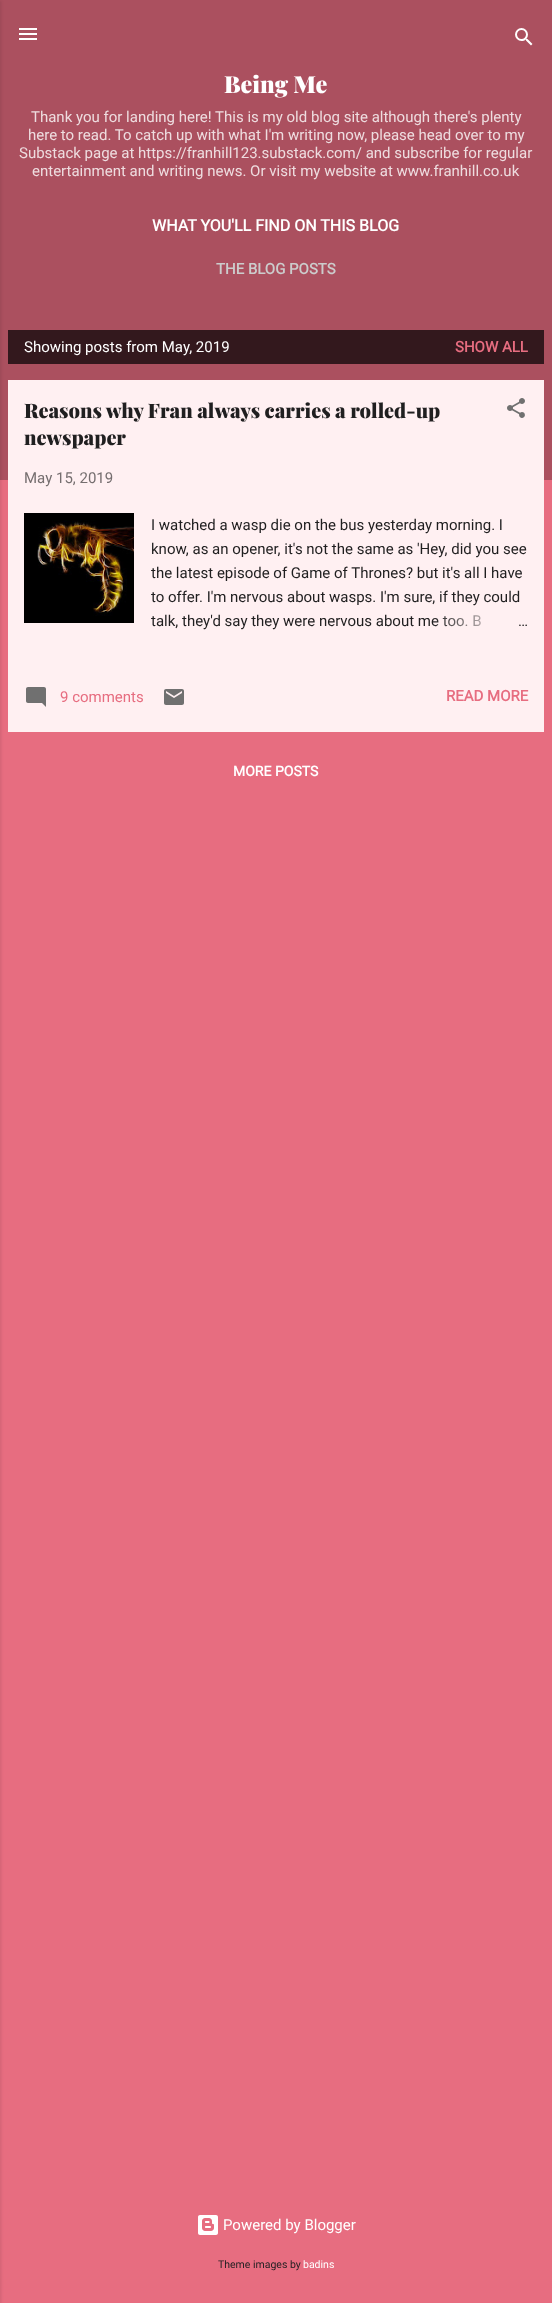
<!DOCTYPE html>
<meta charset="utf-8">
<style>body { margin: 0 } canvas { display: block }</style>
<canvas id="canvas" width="552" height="2303"></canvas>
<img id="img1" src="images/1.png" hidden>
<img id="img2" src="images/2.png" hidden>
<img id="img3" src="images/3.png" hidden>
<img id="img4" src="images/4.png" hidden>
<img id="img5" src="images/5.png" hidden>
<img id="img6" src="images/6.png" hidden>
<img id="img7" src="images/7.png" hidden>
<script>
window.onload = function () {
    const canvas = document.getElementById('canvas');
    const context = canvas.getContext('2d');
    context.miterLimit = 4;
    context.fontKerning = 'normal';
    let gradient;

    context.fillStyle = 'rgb(231, 109, 128)';
    context.fillRect(0, 0, 552, 2303);
    context.fillStyle = 'rgb(171, 80, 95)';
    context.fillRect(0, 0, 552, 480);
    context.fillStyle = 'rgba(0, 0, 0, 0.1)';
    context.filter = 'blur(1.5px)';
    context.beginPath();
    context.rect(-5, 1, 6, 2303);
    context.fill();
    context.filter = 'none';
    context.drawImage(document.getElementById('img1'), 19, 28, 18, 12);
    context.drawImage(document.getElementById('img2'), 515, 28, 18, 18);
    context.fillStyle = 'rgb(51, 24, 29)';
    context.fillRect(8, 330, 536, 34);
    context.fillStyle = 'rgb(255, 240, 242)';
    context.fillRect(8, 380, 536, 352);
    context.drawImage(document.getElementById('img3'), 507, 398, 18, 20);
    context.drawImage(document.getElementById('img4'), 24, 513, 110, 110);
    context.drawImage(document.getElementById('img5'), 26, 687, 20, 20);
    context.drawImage(document.getElementById('img6'), 164, 689, 20, 16);
    context.drawImage(document.getElementById('img7'), 198, 2215, 20, 20);
    context.font = '900 23.5px Playfair Display';
    context.fillStyle = 'rgb(255, 255, 255)';
    context.fillText('Being Me', 224, 93);
    context.font = '15px Roboto';
    context.fillStyle = 'rgb(238, 220, 223)';
    context.fillText('Thank you for landing here! This is my old blog site although there\'s plenty', 31, 122);
    context.fillText('here to read. To catch up with what I\'m writing now, please head over to my', 28, 140);
    context.fillText('Substack page at https://franhill123.substack.com/ and subscribe for regular', 19, 158);
    context.fillText('entertainment and writing news. Or visit my website at www.franhill.co.uk', 32, 176);
    context.font = 'bold 16px Roboto';
    context.fillStyle = 'rgb(255, 255, 255)';
    context.fillText('WHAT YOU\'LL FIND ON THIS BLOG', 152, 231);
    context.font = 'bold 15px Roboto';
    context.fillStyle = 'rgb(204, 204, 204)';
    context.fillText('THE BLOG POSTS', 216, 274);
    context.font = '15px Roboto';
    context.fillStyle = 'rgb(255, 255, 255)';
    context.fillText('Showing posts from May, 2019', 24, 352);
    context.font = 'bold 15px Roboto';
    context.fillStyle = 'rgb(231, 109, 128)';
    context.fillText('SHOW ALL', 455, 352);
    context.font = '900 20px Playfair Display';
    context.fillStyle = 'rgb(32, 31, 32)';
    context.fillText('Reasons why Fran always carries a rolled-up', 24, 418);
    context.fillText('newspaper', 24, 445);
    context.font = '15px Roboto';
    context.fillStyle = 'rgb(117, 110, 111)';
    context.fillText('May 15, 2019', 24, 483);
    context.fillStyle = 'rgb(32, 31, 32)';
    context.fillText('I watched a wasp die on the bus yesterday morning. I', 151, 530);
    context.fillText('know, as an opener, it\'s not the same as \'Hey, did you see', 151, 554);
    context.fillText('the latest episode of Game of Thrones? but it\'s all I have', 151, 578);
    context.fillText('to offer. I\'m nervous about wasps. I\'m sure, if they could', 151, 602);
    context.fillText('talk, they\'d say they were nervous about me too. B', 151, 626);
    gradient = context.createLinearGradient(528, 621, 432, 621);
    gradient.addColorStop(0, 'rgb(255, 240, 242)');
    gradient.addColorStop(0.2, 'rgb(255, 240, 242)');
    gradient.addColorStop(1, 'rgba(255, 240, 242, 0)');
    context.fillStyle = gradient;
    context.fillRect(434, 615, 47, 12);
    context.fillStyle = 'rgb(32, 31, 32)';
    context.fillText('…', 518, 626);
    context.fillStyle = 'rgb(231, 109, 128)';
    context.fillText('9 comments', 60, 702);
    context.font = 'bold 15px Roboto';
    context.fillText('READ MORE', 446, 701);
    context.font = 'bold 14px Roboto';
    context.fillStyle = 'rgb(255, 255, 255)';
    context.fillText('MORE POSTS', 233, 776);
    context.font = '15px Roboto';
    context.fillText('Powered by Blogger', 223, 2230);
    context.font = '10.5px Roboto';
    context.fillStyle = 'rgb(32, 31, 32)';
    context.fillText('Theme images by', 218, 2268);
    context.fillStyle = 'rgb(255, 255, 255)';
    context.fillText('badins', 303, 2268);
};
</script>
